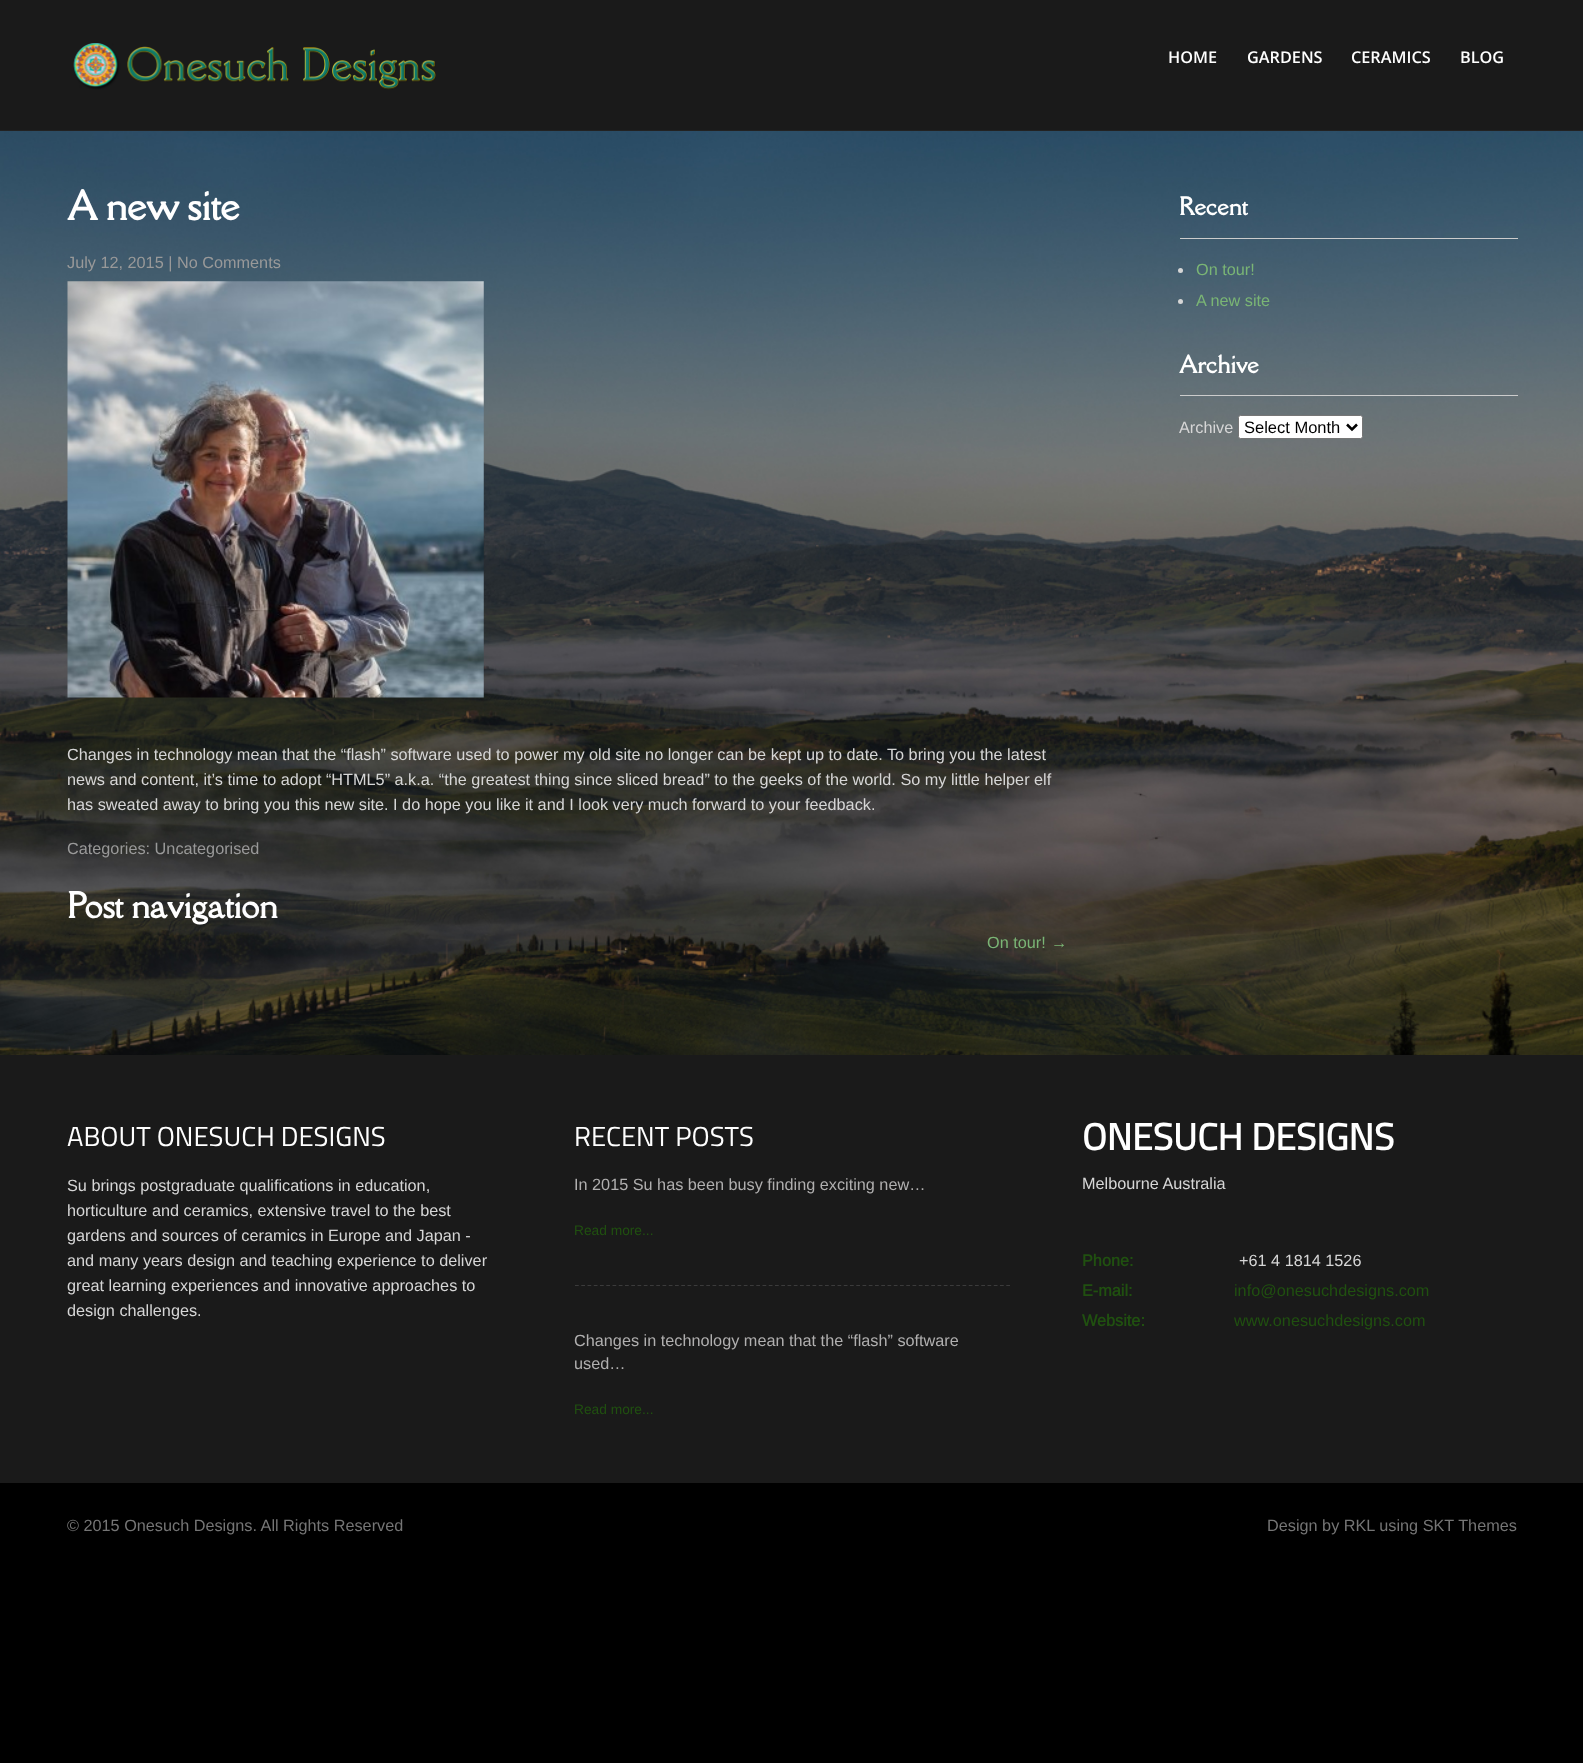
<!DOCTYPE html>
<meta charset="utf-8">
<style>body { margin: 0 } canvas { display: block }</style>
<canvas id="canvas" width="1583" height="1763"></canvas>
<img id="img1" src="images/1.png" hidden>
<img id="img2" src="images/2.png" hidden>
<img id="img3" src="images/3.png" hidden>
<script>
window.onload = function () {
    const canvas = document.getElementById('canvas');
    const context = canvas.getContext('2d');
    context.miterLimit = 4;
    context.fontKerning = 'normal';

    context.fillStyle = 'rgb(0, 0, 0)';
    context.fillRect(0, 0, 1583, 1763);
    context.drawImage(document.getElementById('img1'), 0, 131, 1583, 924);
    context.fillStyle = 'rgb(26, 26, 26)';
    context.fillRect(0, 0, 1583, 130);
    context.fillStyle = 'rgb(34, 34, 34)';
    context.fillRect(0, 130, 1583, 1);
    context.drawImage(document.getElementById('img2'), 73, 43, 363, 47);
    context.drawImage(document.getElementById('img3'), 67, 281, 417, 417);
    context.fillStyle = 'rgb(204, 204, 204)';
    context.fillRect(1180, 238, 338, 1);
    context.fillStyle = 'rgb(214, 214, 214)';
    context.beginPath();
    context.arc(1180.5, 270.5, 2.5, 0, 2 * Math.PI);
    context.fill();
    context.beginPath();
    context.arc(1180.5, 301.5, 2.5, 0, 2 * Math.PI);
    context.fill();
    context.fillStyle = 'rgb(204, 204, 204)';
    context.fillRect(1180, 395, 338, 1);
    context.fillStyle = 'rgb(255, 255, 255)';
    context.beginPath();
    context.roundRect(1238.5, 415.5, 124, 23, 2);
    context.fill();
    context.strokeStyle = 'rgb(118, 118, 118)';
    context.stroke();
    context.beginPath();
    context.moveTo(1347, 424.5);
    context.lineTo(1352, 429.5);
    context.lineTo(1357, 424.5);
    context.strokeStyle = 'rgb(0, 0, 0)';
    context.lineWidth = 2.5;
    context.stroke();
    context.fillStyle = 'rgb(26, 26, 26)';
    context.fillRect(0, 1055, 1583, 428);
    context.beginPath();
    context.moveTo(575, 1285.5);
    context.lineTo(1010, 1285.5);
    context.strokeStyle = 'rgb(59, 59, 59)';
    context.lineWidth = 1.2;
    context.setLineDash([3.75, 2.5]);
    context.stroke();
    context.font = '600 16.25px Open Sans';
    context.fillStyle = 'rgb(255, 255, 255)';
    context.fillText('HOME', 1168, 63);
    context.fillText('GARDENS', 1247, 63);
    context.fillText('CERAMICS', 1351, 63);
    context.fillText('BLOG', 1460, 63);
    context.font = 'bold 37.5px Della Respira';
    context.fillText('A new site', 67, 220);
    context.font = '16.25px Arimo';
    context.fillStyle = 'rgb(153, 153, 153)';
    context.fillText('July 12, 2015 | No Comments', 67, 268);
    context.fillStyle = 'rgb(214, 214, 214)';
    context.fillText('Changes in technology mean that the “flash” software used to power my old site no longer can be kept up to date. To bring you the latest', 67, 760);
    context.fillText('news and content, it’s time to adopt “HTML5” a.k.a. “the greatest thing since sliced bread” to the geeks of the world. So my little helper elf', 67, 785);
    context.fillText('has sweated away to bring you this new site. I do hope you like it and I look very much forward to your feedback.', 67, 810);
    context.fillStyle = 'rgb(153, 153, 153)';
    context.fillText('Categories: Uncategorised', 67, 854);
    context.font = 'bold 32.5px Della Respira';
    context.fillStyle = 'rgb(255, 255, 255)';
    context.fillText('Post navigation', 67, 918);
    context.font = '16.25px Arimo';
    context.fillStyle = 'rgb(122, 181, 117)';
    context.fillText('On tour!', 987, 948);
    context.font = '16.25px Liberation Sans';
    context.fillText('→', 1051, 948);
    context.font = 'bold 22.5px Della Respira';
    context.fillStyle = 'rgb(255, 255, 255)';
    context.fillText('Recent', 1179, 215);
    context.font = '16.25px Arimo';
    context.fillStyle = 'rgb(122, 181, 117)';
    context.fillText('On tour!', 1196, 275);
    context.fillText('A new site', 1196, 306);
    context.font = 'bold 22.5px Della Respira';
    context.fillStyle = 'rgb(255, 255, 255)';
    context.fillText('Archive', 1179, 373);
    context.font = '16.25px Arimo';
    context.fillStyle = 'rgb(214, 214, 214)';
    context.fillText('Archive', 1179, 433);
    context.font = '16.5px Liberation Sans';
    context.fillStyle = 'rgb(0, 0, 0)';
    context.fillText('Select Month', 1244, 433);
    context.font = '27.5px Titillium Web';
    context.fillStyle = 'rgb(255, 255, 255)';
    context.fillText('ABOUT ONESUCH DESIGNS', 67, 1146);
    context.font = '16.25px Arimo';
    context.fillStyle = 'rgb(214, 214, 214)';
    context.fillText('Su brings postgraduate qualifications in education,', 67, 1191);
    context.fillText('horticulture and ceramics, extensive travel to the best', 67, 1216);
    context.fillText('gardens and sources of ceramics in Europe and Japan -', 67, 1241);
    context.fillText('and many years design and teaching experience to deliver', 67, 1266);
    context.fillText('great learning experiences and innovative approaches to', 67, 1291);
    context.fillText('design challenges.', 67, 1316);
    context.font = '27.5px Titillium Web';
    context.fillStyle = 'rgb(255, 255, 255)';
    context.fillText('RECENT POSTS', 574, 1146);
    context.font = '16.25px Arimo';
    context.fillStyle = 'rgb(176, 175, 175)';
    context.fillText('In 2015 Su has been busy finding exciting new…', 574, 1190);
    context.font = '13.75px Arimo';
    context.fillStyle = 'rgb(32, 80, 16)';
    context.fillText('Read more...', 574, 1235);
    context.font = '16.25px Arimo';
    context.fillStyle = 'rgb(176, 175, 175)';
    context.fillText('Changes in technology mean that the “flash” software', 574, 1346);
    context.fillText('used…', 574, 1369);
    context.font = '13.75px Arimo';
    context.fillStyle = 'rgb(32, 80, 16)';
    context.fillText('Read more...', 574, 1414);
    context.font = 'bold 37.5px Titillium Web';
    context.fillStyle = 'rgb(255, 255, 255)';
    context.fillText('ONESUCH DESIGNS', 1082, 1150);
    context.font = '16.25px Arimo';
    context.fillStyle = 'rgb(214, 214, 214)';
    context.fillText('Melbourne Australia', 1082, 1189);
    context.font = 'bold 16.25px Arimo';
    context.fillStyle = 'rgb(32, 80, 16)';
    context.fillText('Phone:', 1082, 1266);
    context.font = '16.25px Arimo';
    context.fillStyle = 'rgb(214, 214, 214)';
    context.fillText('+61 4 1814 1526', 1239, 1266);
    context.font = 'bold 16.25px Arimo';
    context.fillStyle = 'rgb(32, 80, 16)';
    context.fillText('E-mail:', 1082, 1296);
    context.font = '16.25px Arimo';
    context.fillText('info@onesuchdesigns.com', 1234, 1296);
    context.font = 'bold 16.25px Arimo';
    context.fillText('Website:', 1082, 1326);
    context.font = '16.25px Arimo';
    context.fillText('www.onesuchdesigns.com', 1234, 1326);
    context.fillStyle = 'rgb(117, 117, 117)';
    context.fillText('© 2015 Onesuch Designs. All Rights Reserved', 67, 1531);
    context.fillText('Design by RKL using SKT Themes', 1267, 1531);
};
</script>
